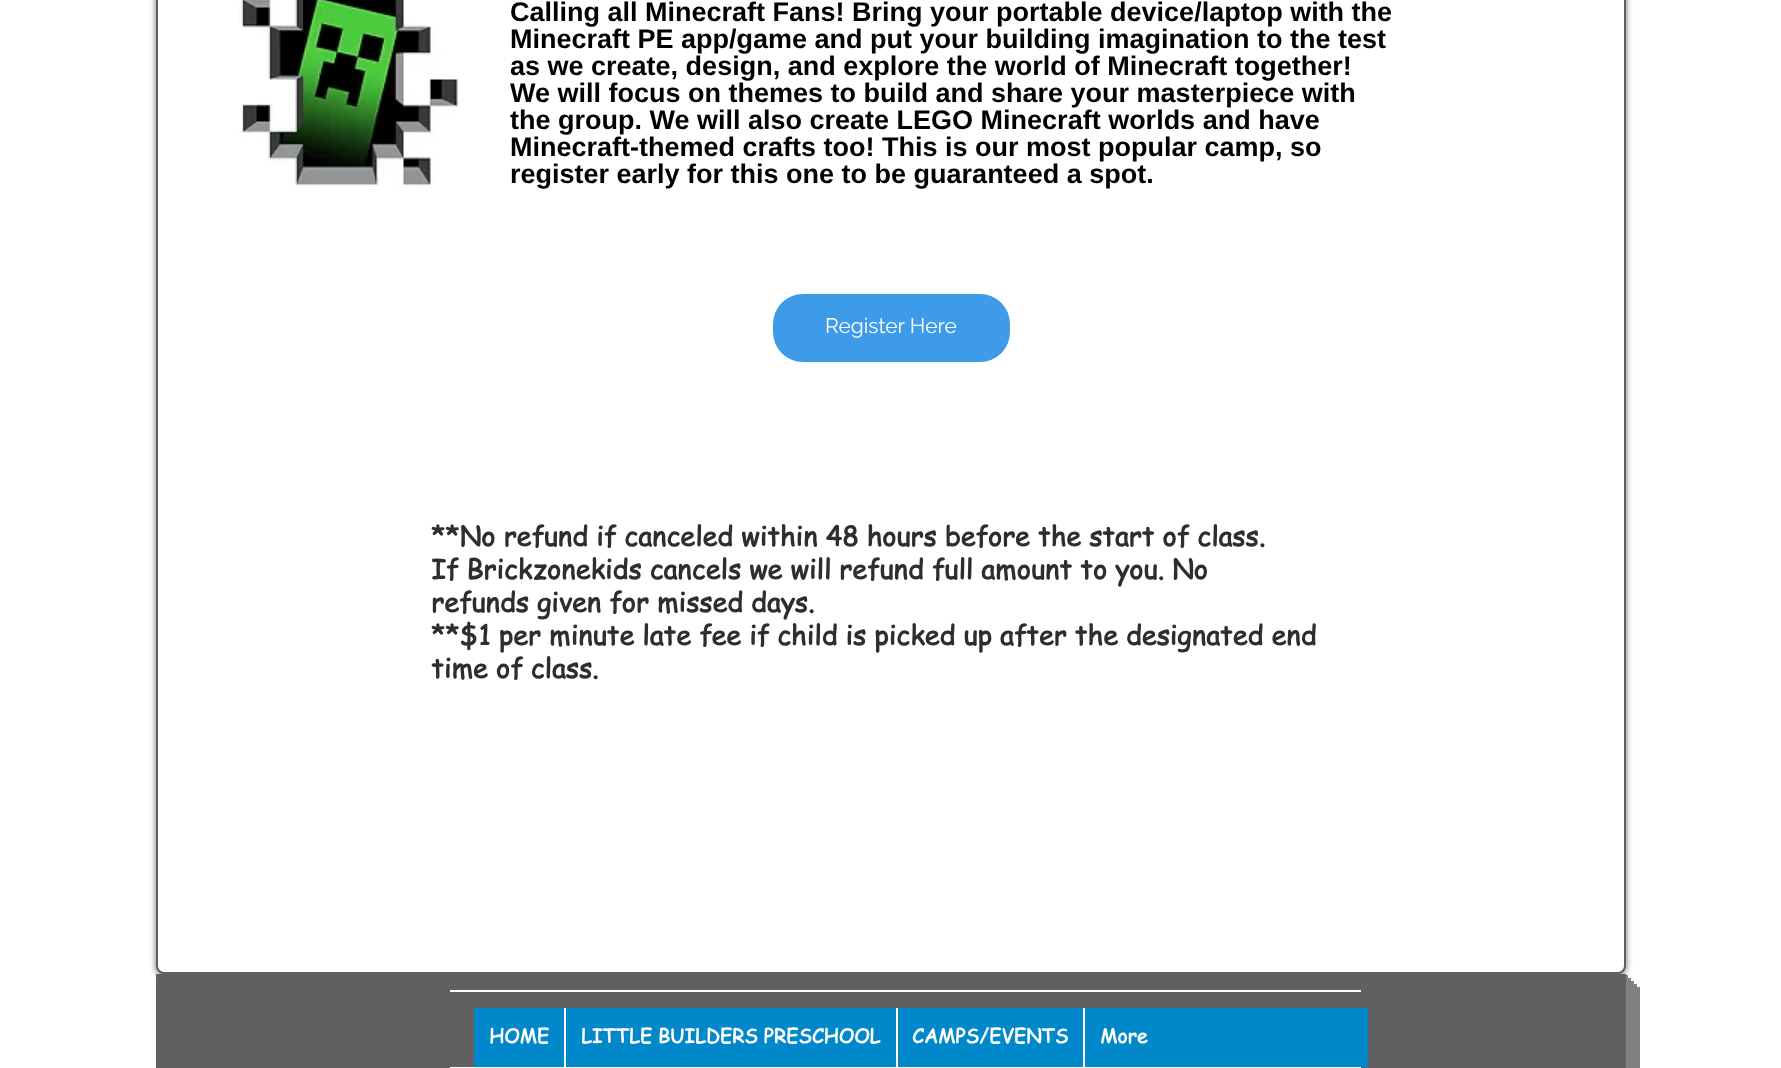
<!DOCTYPE html>
<meta charset="utf-8">
<style>body { margin: 0 } canvas { display: block }</style>
<canvas id="canvas" width="1781" height="1068"></canvas>
<img id="img1" src="images/1.png" hidden>
<script>
window.onload = function () {
    const canvas = document.getElementById('canvas');
    const context = canvas.getContext('2d');
    context.miterLimit = 4;
    context.fontKerning = 'normal';

    context.fillStyle = 'rgb(255, 255, 255)';
    context.fillRect(0, 0, 1781, 1068);
    context.fillStyle = 'rgba(0, 0, 0, 0.6)';
    context.filter = 'blur(3px)';
    context.beginPath();
    context.roundRect(156, -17, 1470, 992, 8);
    context.fill();
    context.filter = 'none';
    context.fillStyle = 'rgb(255, 255, 255)';
    context.beginPath();
    context.roundRect(157, -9, 1468, 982, 7);
    context.fill();
    context.strokeStyle = 'rgb(96, 96, 96)';
    context.lineWidth = 2;
    context.stroke();
    context.drawImage(document.getElementById('img1'), 239, 0, 220, 188);
    context.fillStyle = 'rgb(61, 155, 233)';
    context.beginPath();
    context.roundRect(773, 294, 237, 68, 30);
    context.fill();
    context.fillStyle = 'rgb(128, 128, 128)';
    context.beginPath();
    context.moveTo(170, 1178);
    context.lineTo(170, 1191);
    context.lineTo(1640, 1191);
    context.lineTo(1640, 987);
    context.lineTo(1626, 987);
    context.lineTo(1626, 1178);
    context.closePath();
    context.fill();
    context.beginPath();
    context.moveTo(167, 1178);
    context.lineTo(167, 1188);
    context.lineTo(1637, 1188);
    context.lineTo(1637, 984);
    context.lineTo(1626, 984);
    context.lineTo(1626, 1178);
    context.closePath();
    context.fill();
    context.beginPath();
    context.moveTo(164, 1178);
    context.lineTo(164, 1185);
    context.lineTo(1634, 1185);
    context.lineTo(1634, 981);
    context.lineTo(1626, 981);
    context.lineTo(1626, 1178);
    context.closePath();
    context.fill();
    context.beginPath();
    context.moveTo(161, 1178);
    context.lineTo(161, 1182);
    context.lineTo(1631, 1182);
    context.lineTo(1631, 978);
    context.lineTo(1626, 978);
    context.lineTo(1626, 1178);
    context.closePath();
    context.fill();
    context.beginPath();
    context.moveTo(158, 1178);
    context.lineTo(158, 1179);
    context.lineTo(1628, 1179);
    context.lineTo(1628, 975);
    context.lineTo(1626, 975);
    context.lineTo(1626, 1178);
    context.closePath();
    context.fill();
    context.fillStyle = 'rgb(96, 96, 96)';
    context.fillRect(156, 974, 1470, 94);
    context.fillStyle = 'rgb(255, 255, 255)';
    context.fillRect(450, 990, 911, 2);
    context.fillStyle = 'rgb(0, 136, 203)';
    context.fillRect(474, 1008, 894, 59);
    context.fillStyle = 'rgb(255, 255, 255)';
    context.fillRect(564, 1008, 2, 59);
    context.fillRect(896, 1008, 2, 59);
    context.fillRect(1083, 1008, 2, 59);
    context.fillRect(450, 1067, 911, 1);
    context.font = 'bold 27px Liberation Sans';
    context.fillStyle = 'rgb(0, 0, 0)';
    context.fillText('Calling all Minecraft Fans! Bring your portable device/laptop with the', 510, 21);
    context.fillText('Minecraft PE app/game and put your building imagination to the test', 510, 48);
    context.fillText('as we create, design, and explore the world of Minecraft together!', 510, 75);
    context.fillText('We will focus on themes to build and share your masterpiece with', 510, 102);
    context.fillText('the group. We will also create LEGO Minecraft worlds and have', 510, 129);
    context.fillText('Minecraft-themed crafts too! This is our most popular camp, so', 510, 156);
    context.fillText('register early for this one to be guaranteed a spot.', 510, 183);
    context.font = '21px Raleway';
    context.fillStyle = 'rgb(255, 255, 255)';
    context.fillText('Register Here', 825, 333);
    context.font = 'bold 27px "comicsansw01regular"';
    context.fillStyle = 'rgb(47, 46, 46)';
    context.fillText('**No refund if canceled within 48 hours before the start of class.', 431, 546);
    context.fillText('If Brickzonekids cancels we will refund full amount to you. No', 431, 579);
    context.fillText('refunds given for missed days.', 431, 612);
    context.fillText('**$1 per minute late fee if child is picked up after the designated end', 431, 645);
    context.fillText('time of class.', 431, 678);
    context.font = 'bold 19.5px "comicsansw01regular"';
    context.fillStyle = 'rgb(255, 255, 255)';
    context.fillText('HOME', 489, 1043);
    context.fillText('LITTLE BUILDERS PRESCHOOL', 581, 1043);
    context.fillText('CAMPS/EVENTS', 912, 1043);
    context.fillText('More', 1100, 1043);
};
</script>
